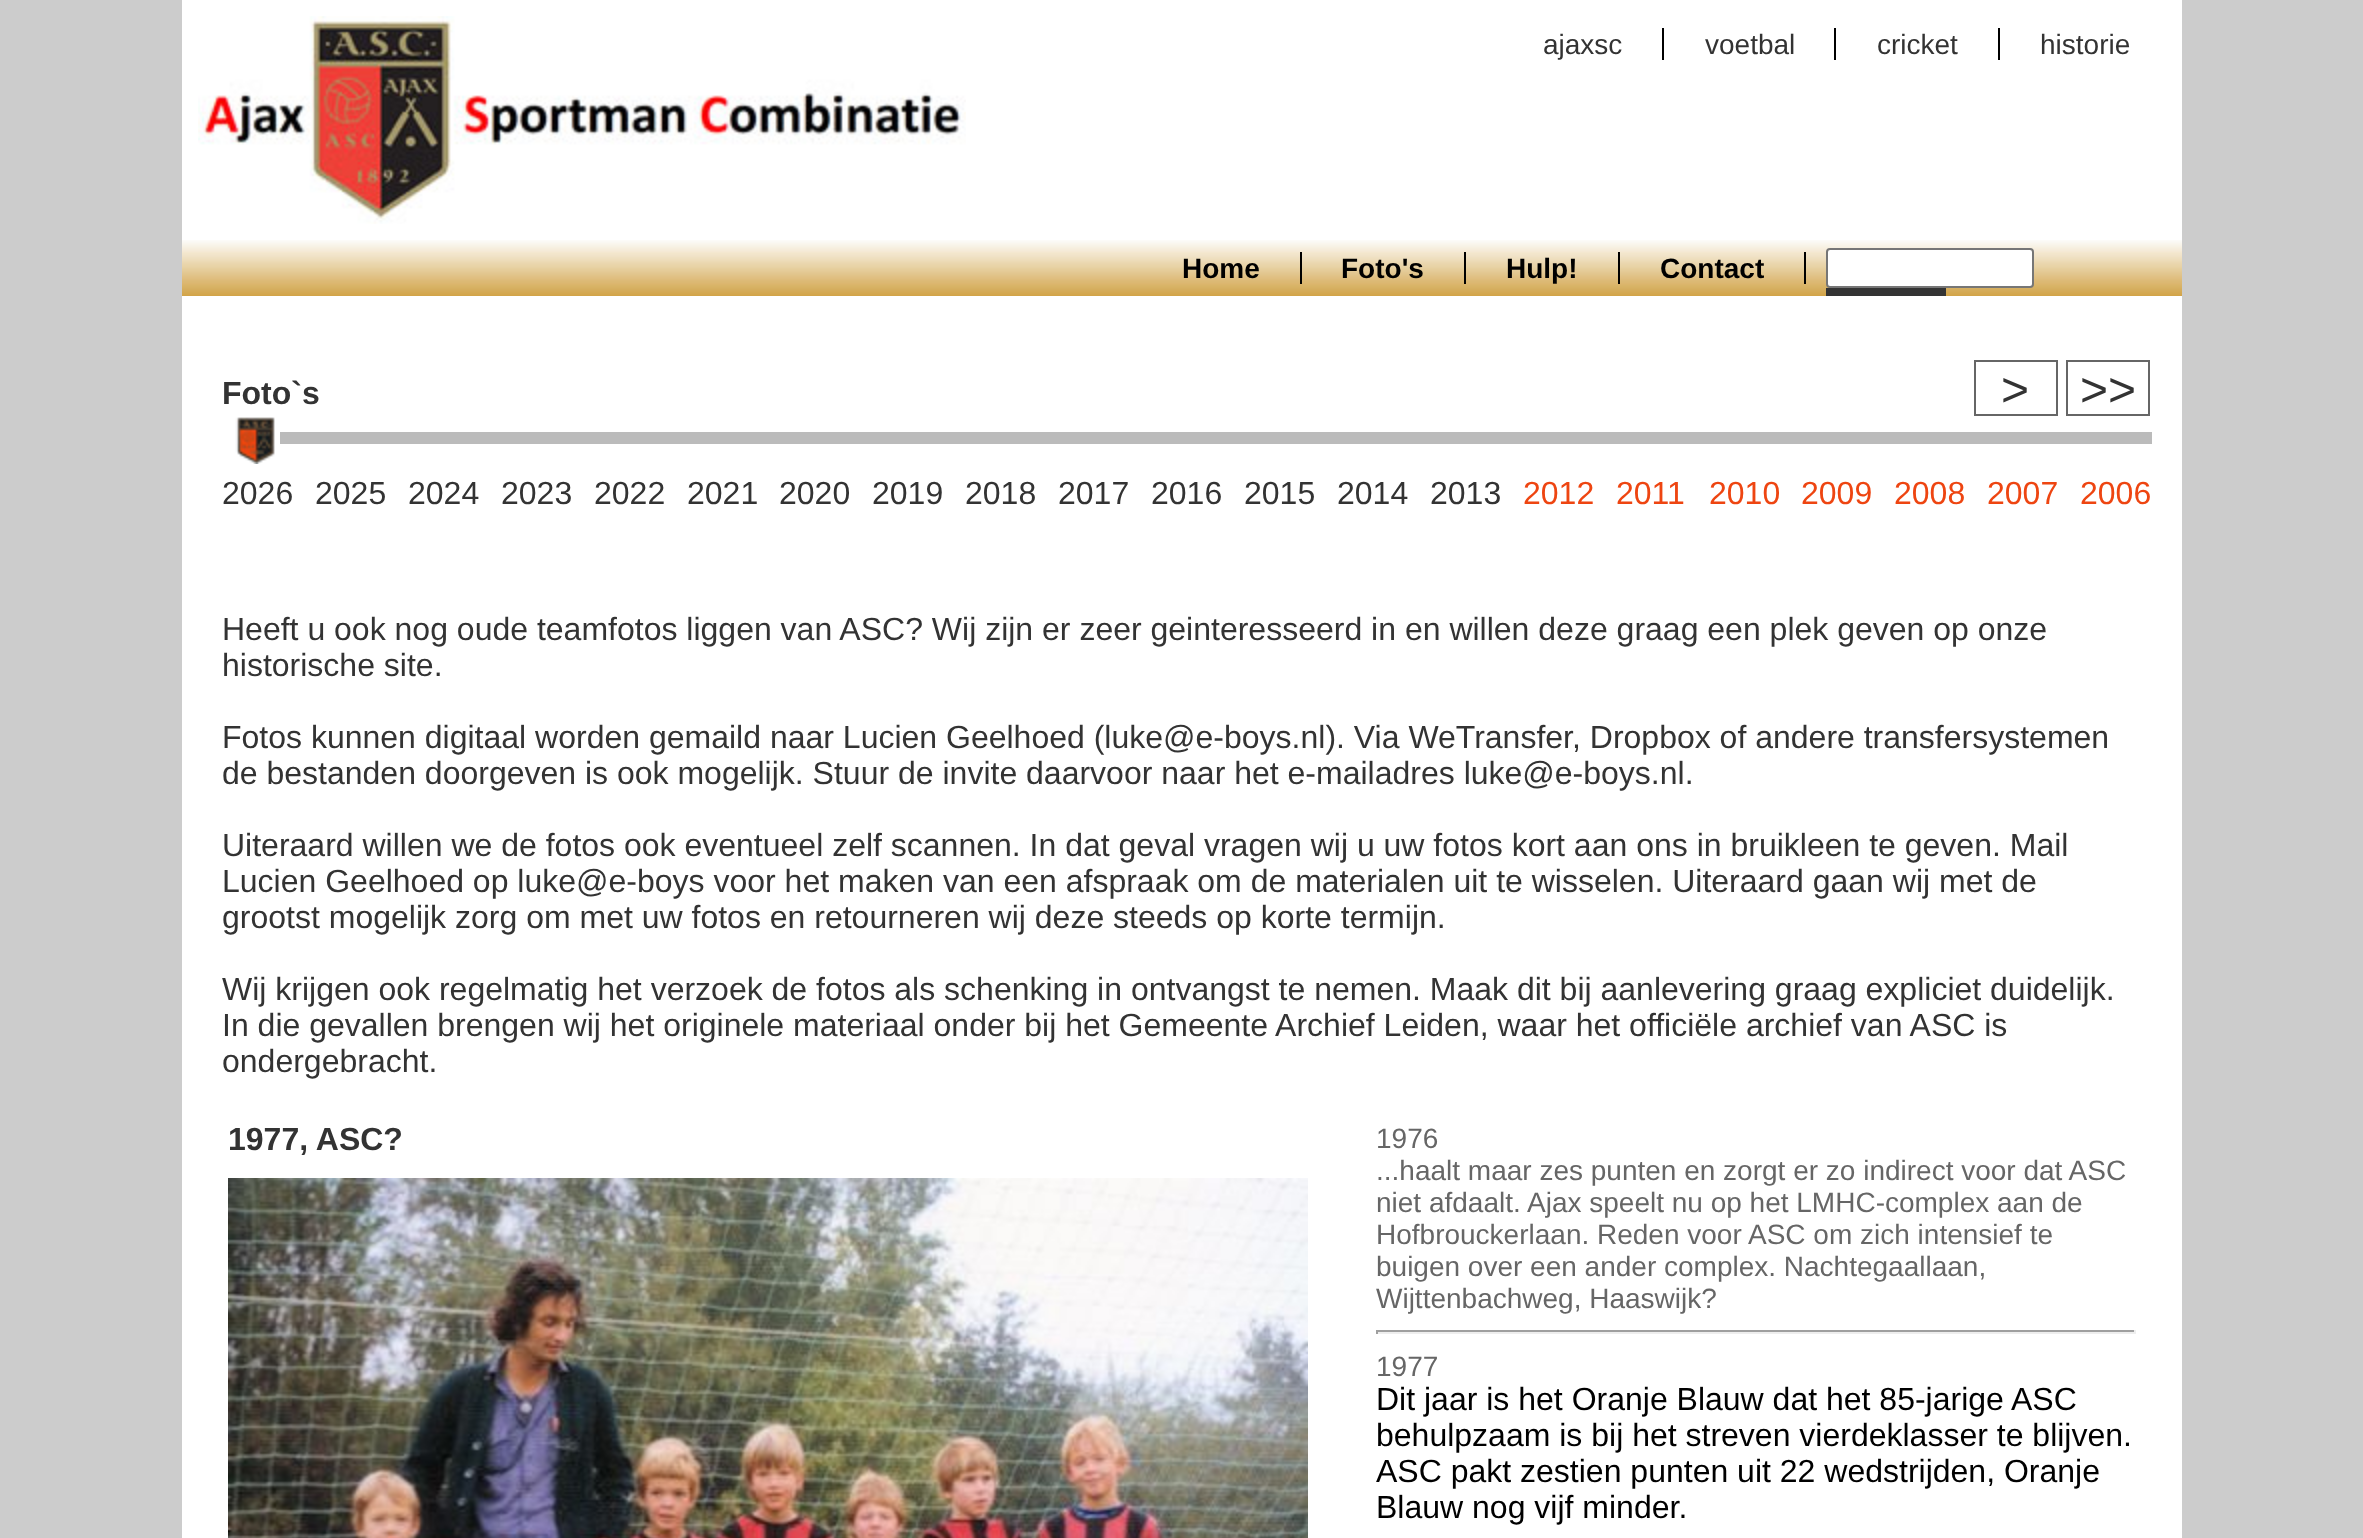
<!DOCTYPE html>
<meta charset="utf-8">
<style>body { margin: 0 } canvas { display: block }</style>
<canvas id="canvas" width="2363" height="1538"></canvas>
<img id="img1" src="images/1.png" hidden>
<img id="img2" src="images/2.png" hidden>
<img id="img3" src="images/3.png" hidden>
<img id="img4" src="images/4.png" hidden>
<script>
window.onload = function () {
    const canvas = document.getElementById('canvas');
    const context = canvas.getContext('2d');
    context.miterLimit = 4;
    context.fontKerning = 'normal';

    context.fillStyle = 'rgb(204, 204, 204)';
    context.fillRect(0, 0, 2363, 1538);
    context.fillStyle = 'rgb(255, 255, 255)';
    context.fillRect(182, 0, 2000, 240);
    context.drawImage(document.getElementById('img1'), 198, 16, 768, 208);
    context.fillStyle = 'rgb(0, 0, 0)';
    context.fillRect(1662, 28, 2, 32);
    context.fillRect(1834, 28, 2, 32);
    context.fillRect(1998, 28, 2, 32);
    context.drawImage(document.getElementById('img2'), 182, 240, 2000, 56);
    context.fillRect(1300, 252, 2, 32);
    context.fillRect(1464, 252, 2, 32);
    context.fillRect(1618, 252, 2, 32);
    context.fillRect(1804, 252, 2, 32);
    context.fillStyle = 'rgb(255, 255, 255)';
    context.beginPath();
    context.roundRect(1827, 249, 206, 38, 3);
    context.fill();
    context.strokeStyle = 'rgb(118, 118, 118)';
    context.lineWidth = 2;
    context.stroke();
    context.fillStyle = 'rgb(51, 51, 51)';
    context.fillRect(1826, 288, 120, 8);
    context.fillStyle = 'rgb(255, 255, 255)';
    context.fillRect(182, 296, 2000, 1242);
    context.strokeStyle = 'rgb(102, 102, 102)';
    context.strokeRect(1975, 361, 82, 54);
    context.strokeRect(2067, 361, 82, 54);
    context.fillStyle = 'rgb(187, 187, 187)';
    context.fillRect(280, 432, 1872, 12);
    context.drawImage(document.getElementById('img3'), 232, 417, 48, 47);
    context.drawImage(document.getElementById('img4'), 228, 1178, 1080, 360);
    context.fillStyle = 'rgb(159, 159, 159)';
    context.fillRect(1376, 1330, 760, 2);
    context.fillStyle = 'rgb(238, 238, 238)';
    context.fillRect(2134, 1330, 2, 4);
    context.fillRect(1376, 1332, 760, 2);
    context.fillStyle = 'rgb(159, 159, 159)';
    context.fillRect(1376, 1330, 2, 4);
    context.font = '28px Liberation Sans';
    context.fillStyle = 'rgb(51, 51, 51)';
    context.fillText('ajaxsc', 1543, 54);
    context.fillText('voetbal', 1705, 54);
    context.fillText('cricket', 1877, 54);
    context.fillText('historie', 2040, 54);
    context.font = 'bold 28px Liberation Sans';
    context.fillStyle = 'rgb(0, 0, 0)';
    context.fillText('Home', 1182, 278);
    context.fillText('Foto\'s', 1341, 278);
    context.fillText('Hulp!', 1506, 278);
    context.fillText('Contact', 1660, 278);
    context.font = 'bold 32px Liberation Sans';
    context.fillStyle = 'rgb(51, 51, 51)';
    context.fillText('Foto`s', 222, 404);
    context.font = '48px Liberation Sans';
    context.fillText('>', 2001, 406);
    context.fillText('>>', 2080, 406);
    context.font = '32px Liberation Sans';
    context.fillText('2026', 222, 504);
    context.fillText('2025', 315, 504);
    context.fillText('2024', 408, 504);
    context.fillText('2023', 501, 504);
    context.fillText('2022', 594, 504);
    context.fillText('2021', 687, 504);
    context.fillText('2020', 779, 504);
    context.fillText('2019', 872, 504);
    context.fillText('2018', 965, 504);
    context.fillText('2017', 1058, 504);
    context.fillText('2016', 1151, 504);
    context.fillText('2015', 1244, 504);
    context.fillText('2014', 1337, 504);
    context.fillText('2013', 1430, 504);
    context.fillStyle = 'rgb(238, 69, 17)';
    context.fillText('2012', 1523, 504);
    context.fillText('2011', 1616, 504);
    context.fillText('2010', 1709, 504);
    context.fillText('2009', 1801, 504);
    context.fillText('2008', 1894, 504);
    context.fillText('2007', 1987, 504);
    context.fillText('2006', 2080, 504);
    context.fillStyle = 'rgb(51, 51, 51)';
    context.fillText('Heeft u ook nog oude teamfotos liggen van ASC? Wij zijn er zeer geinteresseerd in en willen deze graag een plek geven op onze', 222, 640);
    context.fillText('historische site.', 222, 676);
    context.fillText('Fotos kunnen digitaal worden gemaild naar Lucien Geelhoed (luke@e-boys.nl). Via WeTransfer, Dropbox of andere transfersystemen', 222, 748);
    context.fillText('de bestanden doorgeven is ook mogelijk. Stuur de invite daarvoor naar het e-mailadres luke@e-boys.nl.', 222, 784);
    context.fillText('Uiteraard willen we de fotos ook eventueel zelf scannen. In dat geval vragen wij u uw fotos kort aan ons in bruikleen te geven. Mail', 222, 856);
    context.fillText('Lucien Geelhoed op luke@e-boys voor het maken van een afspraak om de materialen uit te wisselen. Uiteraard gaan wij met de', 222, 892);
    context.fillText('grootst mogelijk zorg om met uw fotos en retourneren wij deze steeds op korte termijn.', 222, 928);
    context.fillText('Wij krijgen ook regelmatig het verzoek de fotos als schenking in ontvangst te nemen. Maak dit bij aanlevering graag expliciet duidelijk.', 222, 1000);
    context.fillText('In die gevallen brengen wij het originele materiaal onder bij het Gemeente Archief Leiden, waar het officiële archief van ASC is', 222, 1036);
    context.fillText('ondergebracht.', 222, 1072);
    context.font = 'bold 32px Liberation Sans';
    context.fillText('1977, ASC?', 228, 1150);
    context.font = '28px Liberation Sans';
    context.fillStyle = 'rgb(102, 102, 102)';
    context.fillText('1976', 1376, 1148);
    context.fillText('...haalt maar zes punten en zorgt er zo indirect voor dat ASC', 1376, 1180);
    context.fillText('niet afdaalt. Ajax speelt nu op het LMHC-complex aan de', 1376, 1212);
    context.fillText('Hofbrouckerlaan. Reden voor ASC om zich intensief te', 1376, 1244);
    context.fillText('buigen over een ander complex. Nachtegaallaan,', 1376, 1276);
    context.fillText('Wijttenbachweg, Haaswijk?', 1376, 1308);
    context.fillText('1977', 1376, 1376);
    context.font = '32px Liberation Sans';
    context.fillStyle = 'rgb(0, 0, 0)';
    context.fillText('Dit jaar is het Oranje Blauw dat het 85-jarige ASC', 1376, 1410);
    context.fillText('behulpzaam is bij het streven vierdeklasser te blijven.', 1376, 1446);
    context.fillText('ASC pakt zestien punten uit 22 wedstrijden, Oranje', 1376, 1482);
    context.fillText('Blauw nog vijf minder.', 1376, 1518);
};
</script>
